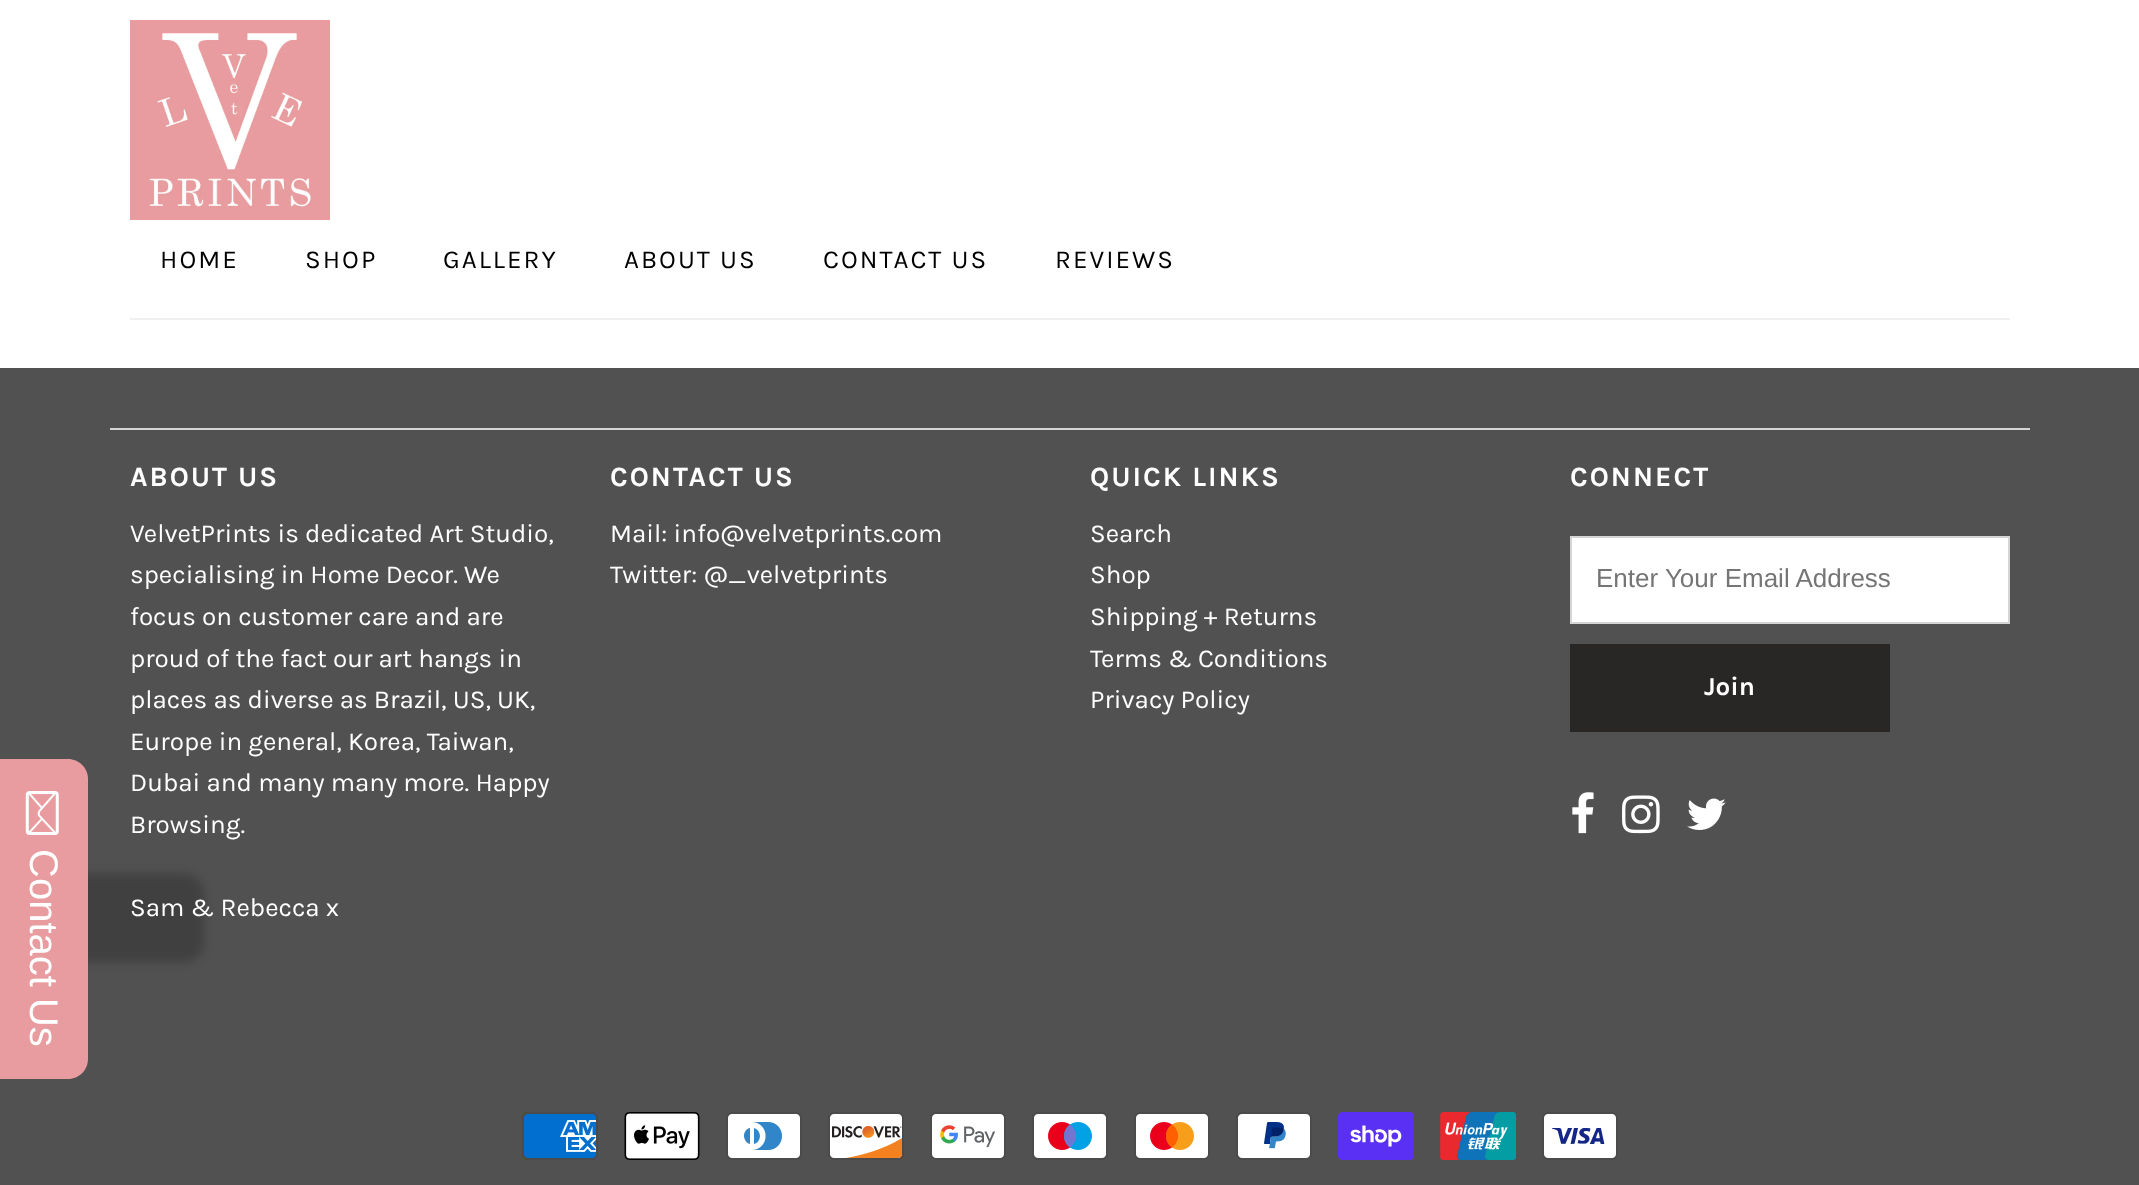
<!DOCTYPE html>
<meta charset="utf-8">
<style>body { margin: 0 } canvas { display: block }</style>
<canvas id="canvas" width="2139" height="1185"></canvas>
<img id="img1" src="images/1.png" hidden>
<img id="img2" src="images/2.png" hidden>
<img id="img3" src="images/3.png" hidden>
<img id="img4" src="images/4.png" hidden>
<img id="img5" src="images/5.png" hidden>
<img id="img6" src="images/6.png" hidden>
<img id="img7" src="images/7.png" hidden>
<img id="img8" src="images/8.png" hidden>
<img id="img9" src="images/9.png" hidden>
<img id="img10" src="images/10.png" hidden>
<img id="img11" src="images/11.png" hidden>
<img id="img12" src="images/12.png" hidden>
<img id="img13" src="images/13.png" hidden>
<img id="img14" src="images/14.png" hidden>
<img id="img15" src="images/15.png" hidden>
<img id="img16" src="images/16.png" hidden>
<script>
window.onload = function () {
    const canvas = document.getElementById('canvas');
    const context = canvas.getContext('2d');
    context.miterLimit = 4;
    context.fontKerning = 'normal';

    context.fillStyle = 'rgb(255, 255, 255)';
    context.fillRect(0, 0, 2139, 1185);
    context.drawImage(document.getElementById('img1'), 130, 20, 200, 200);
    context.fillStyle = 'rgb(240, 240, 240)';
    context.fillRect(130, 318, 1880, 2);
    context.fillStyle = 'rgb(81, 81, 81)';
    context.fillRect(0, 368, 2139, 817);
    context.fillStyle = 'rgb(213, 213, 213)';
    context.fillRect(110, 428, 1920, 2);
    context.fillStyle = 'rgb(255, 255, 255)';
    context.beginPath();
    context.rect(1571, 537, 438, 86);
    context.fill();
    context.strokeStyle = 'rgb(213, 213, 213)';
    context.lineWidth = 2;
    context.stroke();
    context.fillStyle = 'rgb(41, 38, 38)';
    context.fillRect(1570, 644, 320, 88);
    context.drawImage(document.getElementById('img2'), 1572, 792, 22, 42);
    context.drawImage(document.getElementById('img3'), 1622, 795, 38, 39);
    context.drawImage(document.getElementById('img4'), 1687, 798, 39, 32);
    context.drawImage(document.getElementById('img5'), 522, 1112, 76, 48);
    context.drawImage(document.getElementById('img6'), 624, 1112, 76, 48);
    context.drawImage(document.getElementById('img7'), 726, 1112, 76, 48);
    context.drawImage(document.getElementById('img8'), 828, 1112, 76, 48);
    context.drawImage(document.getElementById('img9'), 930, 1112, 76, 48);
    context.drawImage(document.getElementById('img10'), 1032, 1112, 76, 48);
    context.drawImage(document.getElementById('img11'), 1134, 1112, 76, 48);
    context.drawImage(document.getElementById('img12'), 1236, 1112, 76, 48);
    context.drawImage(document.getElementById('img13'), 1338, 1112, 76, 48);
    context.drawImage(document.getElementById('img14'), 1440, 1112, 76, 48);
    context.drawImage(document.getElementById('img15'), 1542, 1112, 76, 48);
    context.fillStyle = 'rgba(0, 0, 0, 0.2)';
    context.filter = 'blur(5px)';
    context.beginPath();
    context.roundRect(-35, 874, 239, 88, 20);
    context.fill();
    context.filter = 'none';
    context.fillStyle = 'rgb(232, 156, 159)';
    context.beginPath();
    context.moveTo(88, 779);
    context.lineTo(88, 1059);
    context.bezierCurveTo(88, 1070, 79, 1079, 68, 1079);
    context.lineTo(0, 1079);
    context.lineTo(0, 759);
    context.lineTo(68, 759);
    context.bezierCurveTo(79, 759, 88, 768, 88, 779);
    context.closePath();
    context.fill();
    context.drawImage(document.getElementById('img16'), 25, 791, 34, 44);
    context.letterSpacing = '2px';
    context.font = '26px Karla';
    context.fillStyle = 'rgb(0, 0, 0)';
    context.fillText('HOME', 160, 268);
    context.fillText('SHOP', 305, 268);
    context.fillText('GALLERY', 443, 268);
    context.fillText('ABOUT US', 624, 268);
    context.fillText('CONTACT US', 823, 268);
    context.fillText('REVIEWS', 1055, 268);
    context.font = 'bold 28px Karla';
    context.fillStyle = 'rgb(255, 255, 255)';
    context.fillText('ABOUT US', 130, 486);
    context.letterSpacing = '0px';
    context.font = '26px Karla';
    context.fillText('VelvetPrints is dedicated Art Studio,', 130, 542);
    context.fillText('specialising in Home Decor. We', 130, 583);
    context.fillText('focus on customer care and are', 130, 625);
    context.fillText('proud of the fact our art hangs in', 130, 667);
    context.fillText('places as diverse as Brazil, US, UK,', 130, 708);
    context.fillText('Europe in general, Korea, Taiwan,', 130, 750);
    context.fillText('Dubai and many many more. Happy', 130, 791);
    context.fillText('Browsing.', 130, 833);
    context.fillText('Sam & Rebecca x', 130, 916);
    context.letterSpacing = '2px';
    context.font = 'bold 28px Karla';
    context.fillText('CONTACT US', 610, 486);
    context.letterSpacing = '0px';
    context.font = '26px Karla';
    context.fillText('Mail: info@velvetprints.com', 610, 542);
    context.fillText('Twitter: @_velvetprints', 610, 583);
    context.letterSpacing = '2px';
    context.font = 'bold 28px Karla';
    context.fillText('QUICK LINKS', 1090, 486);
    context.letterSpacing = '0px';
    context.font = '26px Karla';
    context.fillText('Search', 1090, 542);
    context.fillText('Shop', 1090, 583);
    context.fillText('Shipping + Returns', 1090, 625);
    context.fillText('Terms & Conditions', 1090, 667);
    context.fillText('Privacy Policy', 1090, 708);
    context.letterSpacing = '2px';
    context.font = 'bold 28px Karla';
    context.fillText('CONNECT', 1570, 486);
    context.letterSpacing = '0px';
    context.font = '26px Liberation Sans';
    context.fillStyle = 'rgb(117, 117, 117)';
    context.fillText('Enter Your Email Address', 1596, 587);
    context.font = 'bold 26px Karla';
    context.fillStyle = 'rgb(255, 255, 255)';
    context.fillText('Join', 1704, 695);
    context.font = '40px Liberation Sans';
    context.save();
    context.translate(30, 849);
    context.rotate(90 * Math.PI / 180);
    context.fillText('Contact Us', 0, 0);
    context.restore();
};
</script>
